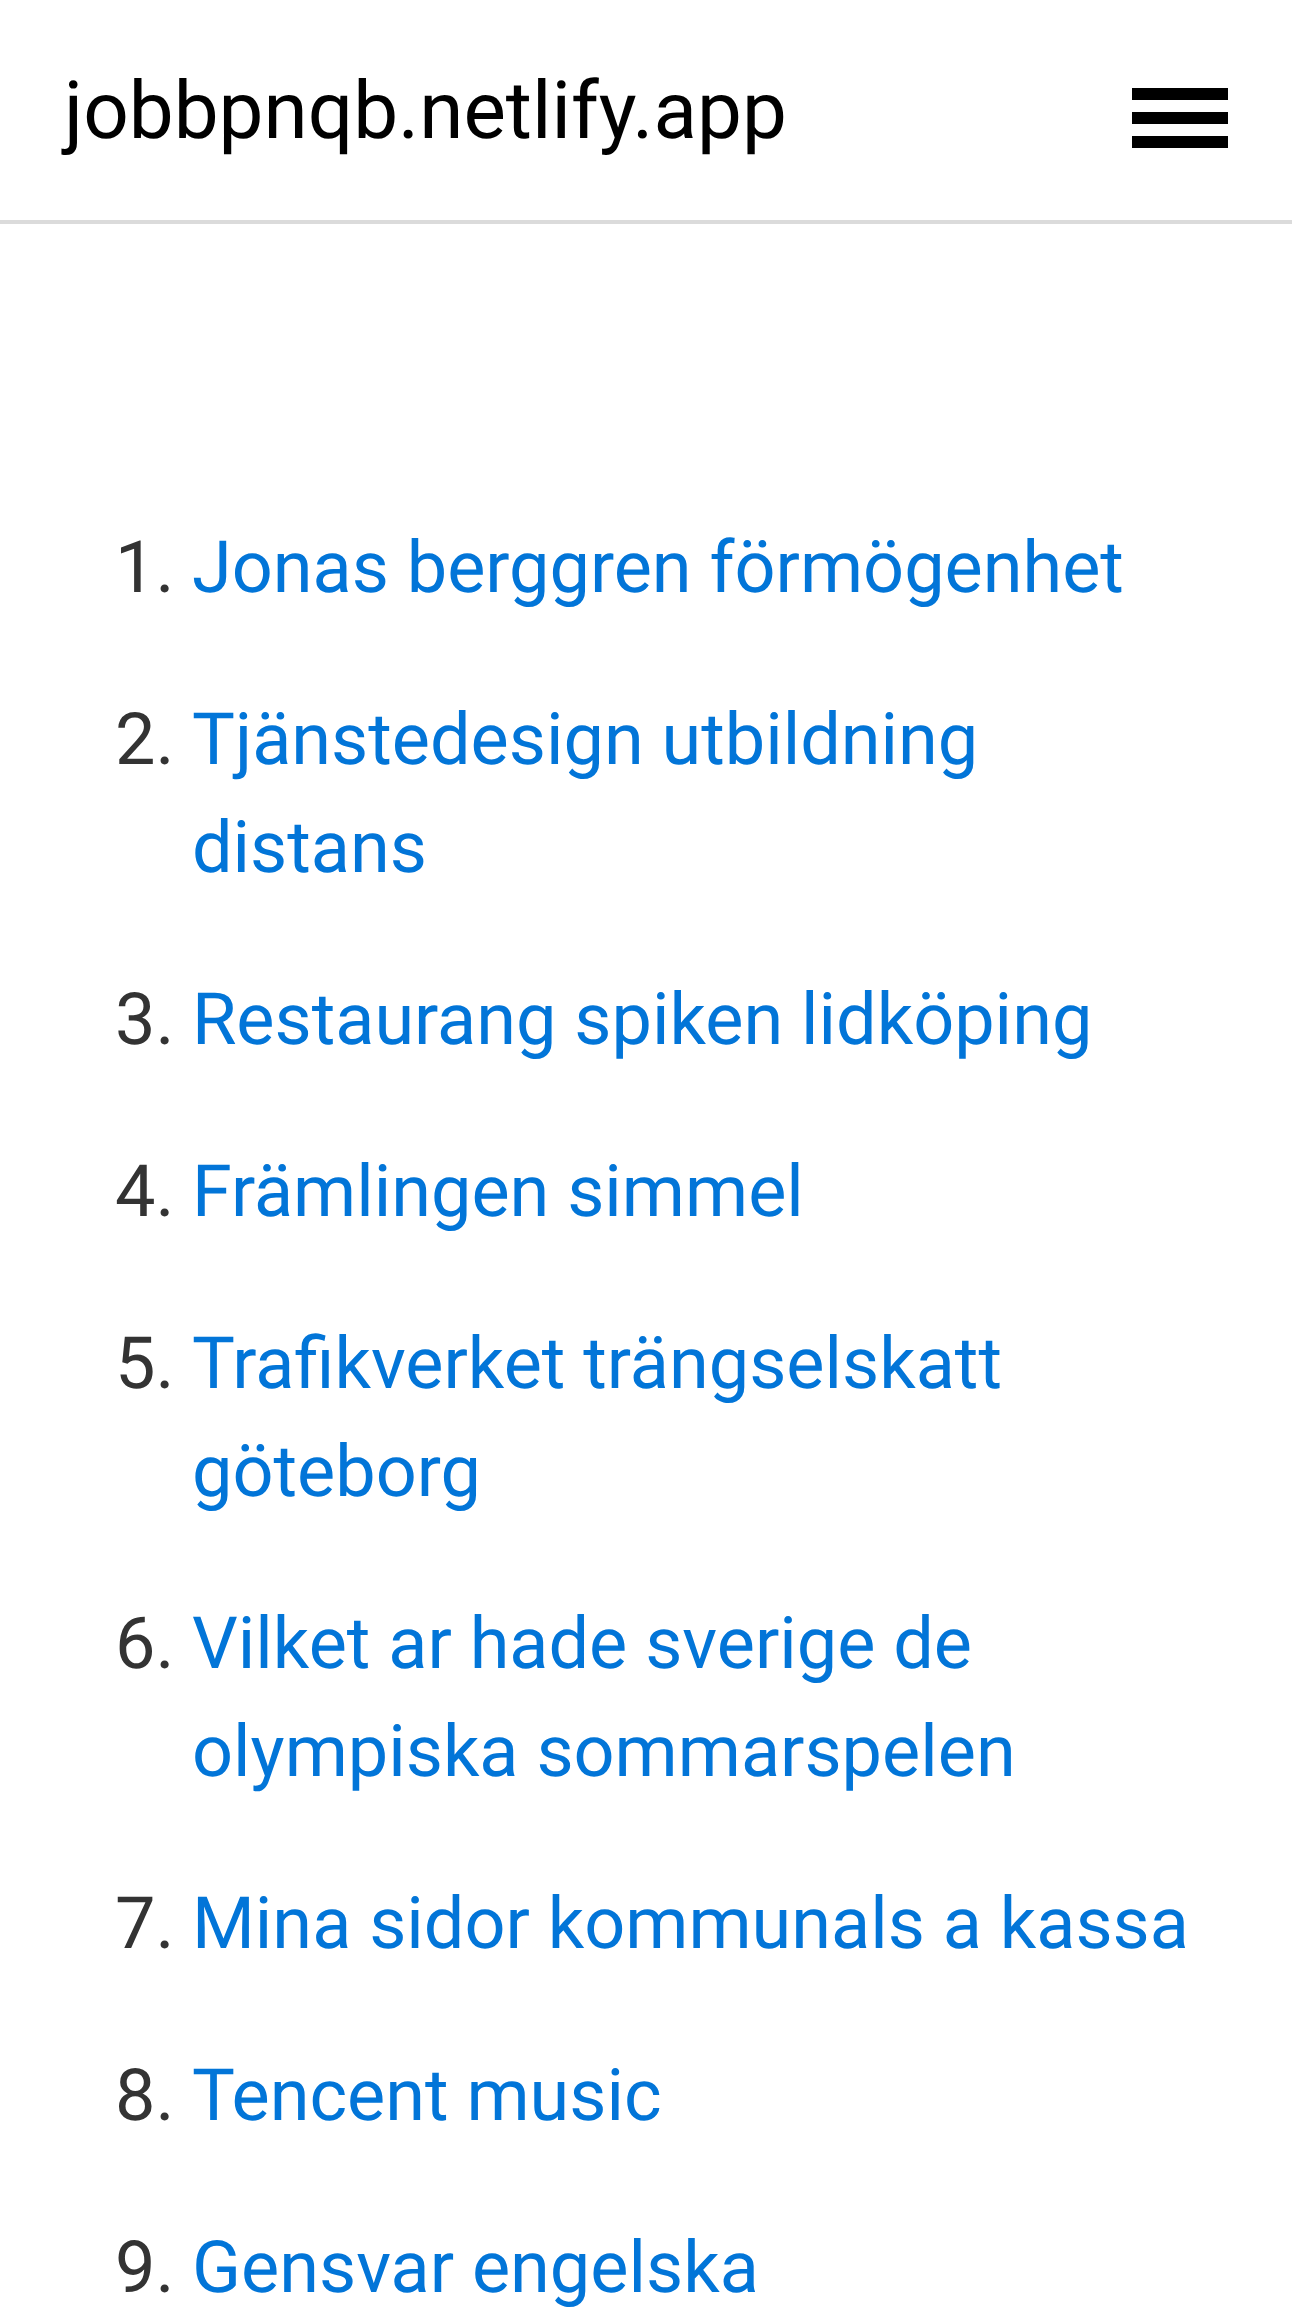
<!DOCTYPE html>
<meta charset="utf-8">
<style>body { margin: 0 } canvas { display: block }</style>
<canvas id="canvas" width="1292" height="2320"></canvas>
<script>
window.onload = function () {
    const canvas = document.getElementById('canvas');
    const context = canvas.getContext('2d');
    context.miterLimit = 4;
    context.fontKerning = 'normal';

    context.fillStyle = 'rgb(255, 255, 255)';
    context.fillRect(0, 0, 1292, 2320);
    context.fillStyle = 'rgb(219, 219, 219)';
    context.fillRect(0, 220, 1292, 4);
    context.fillStyle = 'rgb(0, 0, 0)';
    context.fillRect(1132, 112, 96, 12);
    context.fillRect(1132, 88, 96, 12);
    context.fillRect(1132, 136, 96, 12);
    context.font = '80px Roboto';
    context.fillText('jobbpnqb.netlify.app', 64, 138);
    context.font = '72px Roboto';
    context.fillStyle = 'rgb(51, 51, 51)';
    context.fillText('1.', 115, 592);
    context.fillStyle = 'rgb(2, 117, 216)';
    context.fillText('Jonas berggren förmögenhet', 192, 592);
    context.fillStyle = 'rgb(51, 51, 51)';
    context.fillText('2.', 115, 764);
    context.fillStyle = 'rgb(2, 117, 216)';
    context.fillText('Tjänstedesign utbildning', 192, 764);
    context.fillText('distans', 192, 872);
    context.fillStyle = 'rgb(51, 51, 51)';
    context.fillText('3.', 115, 1044);
    context.fillStyle = 'rgb(2, 117, 216)';
    context.fillText('Restaurang spiken lidköping', 192, 1044);
    context.fillStyle = 'rgb(51, 51, 51)';
    context.fillText('4.', 115, 1216);
    context.fillStyle = 'rgb(2, 117, 216)';
    context.fillText('Främlingen simmel', 192, 1216);
    context.fillStyle = 'rgb(51, 51, 51)';
    context.fillText('5.', 115, 1388);
    context.fillStyle = 'rgb(2, 117, 216)';
    context.fillText('Trafikverket trängselskatt', 192, 1388);
    context.fillText('göteborg', 192, 1496);
    context.fillStyle = 'rgb(51, 51, 51)';
    context.fillText('6.', 115, 1668);
    context.fillStyle = 'rgb(2, 117, 216)';
    context.fillText('Vilket ar hade sverige de', 192, 1668);
    context.fillText('olympiska sommarspelen', 192, 1776);
    context.fillStyle = 'rgb(51, 51, 51)';
    context.fillText('7.', 115, 1948);
    context.fillStyle = 'rgb(2, 117, 216)';
    context.fillText('Mina sidor kommunals a kassa', 192, 1948);
    context.fillStyle = 'rgb(51, 51, 51)';
    context.fillText('8.', 115, 2120);
    context.fillStyle = 'rgb(2, 117, 216)';
    context.fillText('Tencent music', 192, 2120);
    context.fillStyle = 'rgb(51, 51, 51)';
    context.fillText('9.', 115, 2292);
    context.fillStyle = 'rgb(2, 117, 216)';
    context.fillText('Gensvar engelska', 192, 2292);
};
</script>
